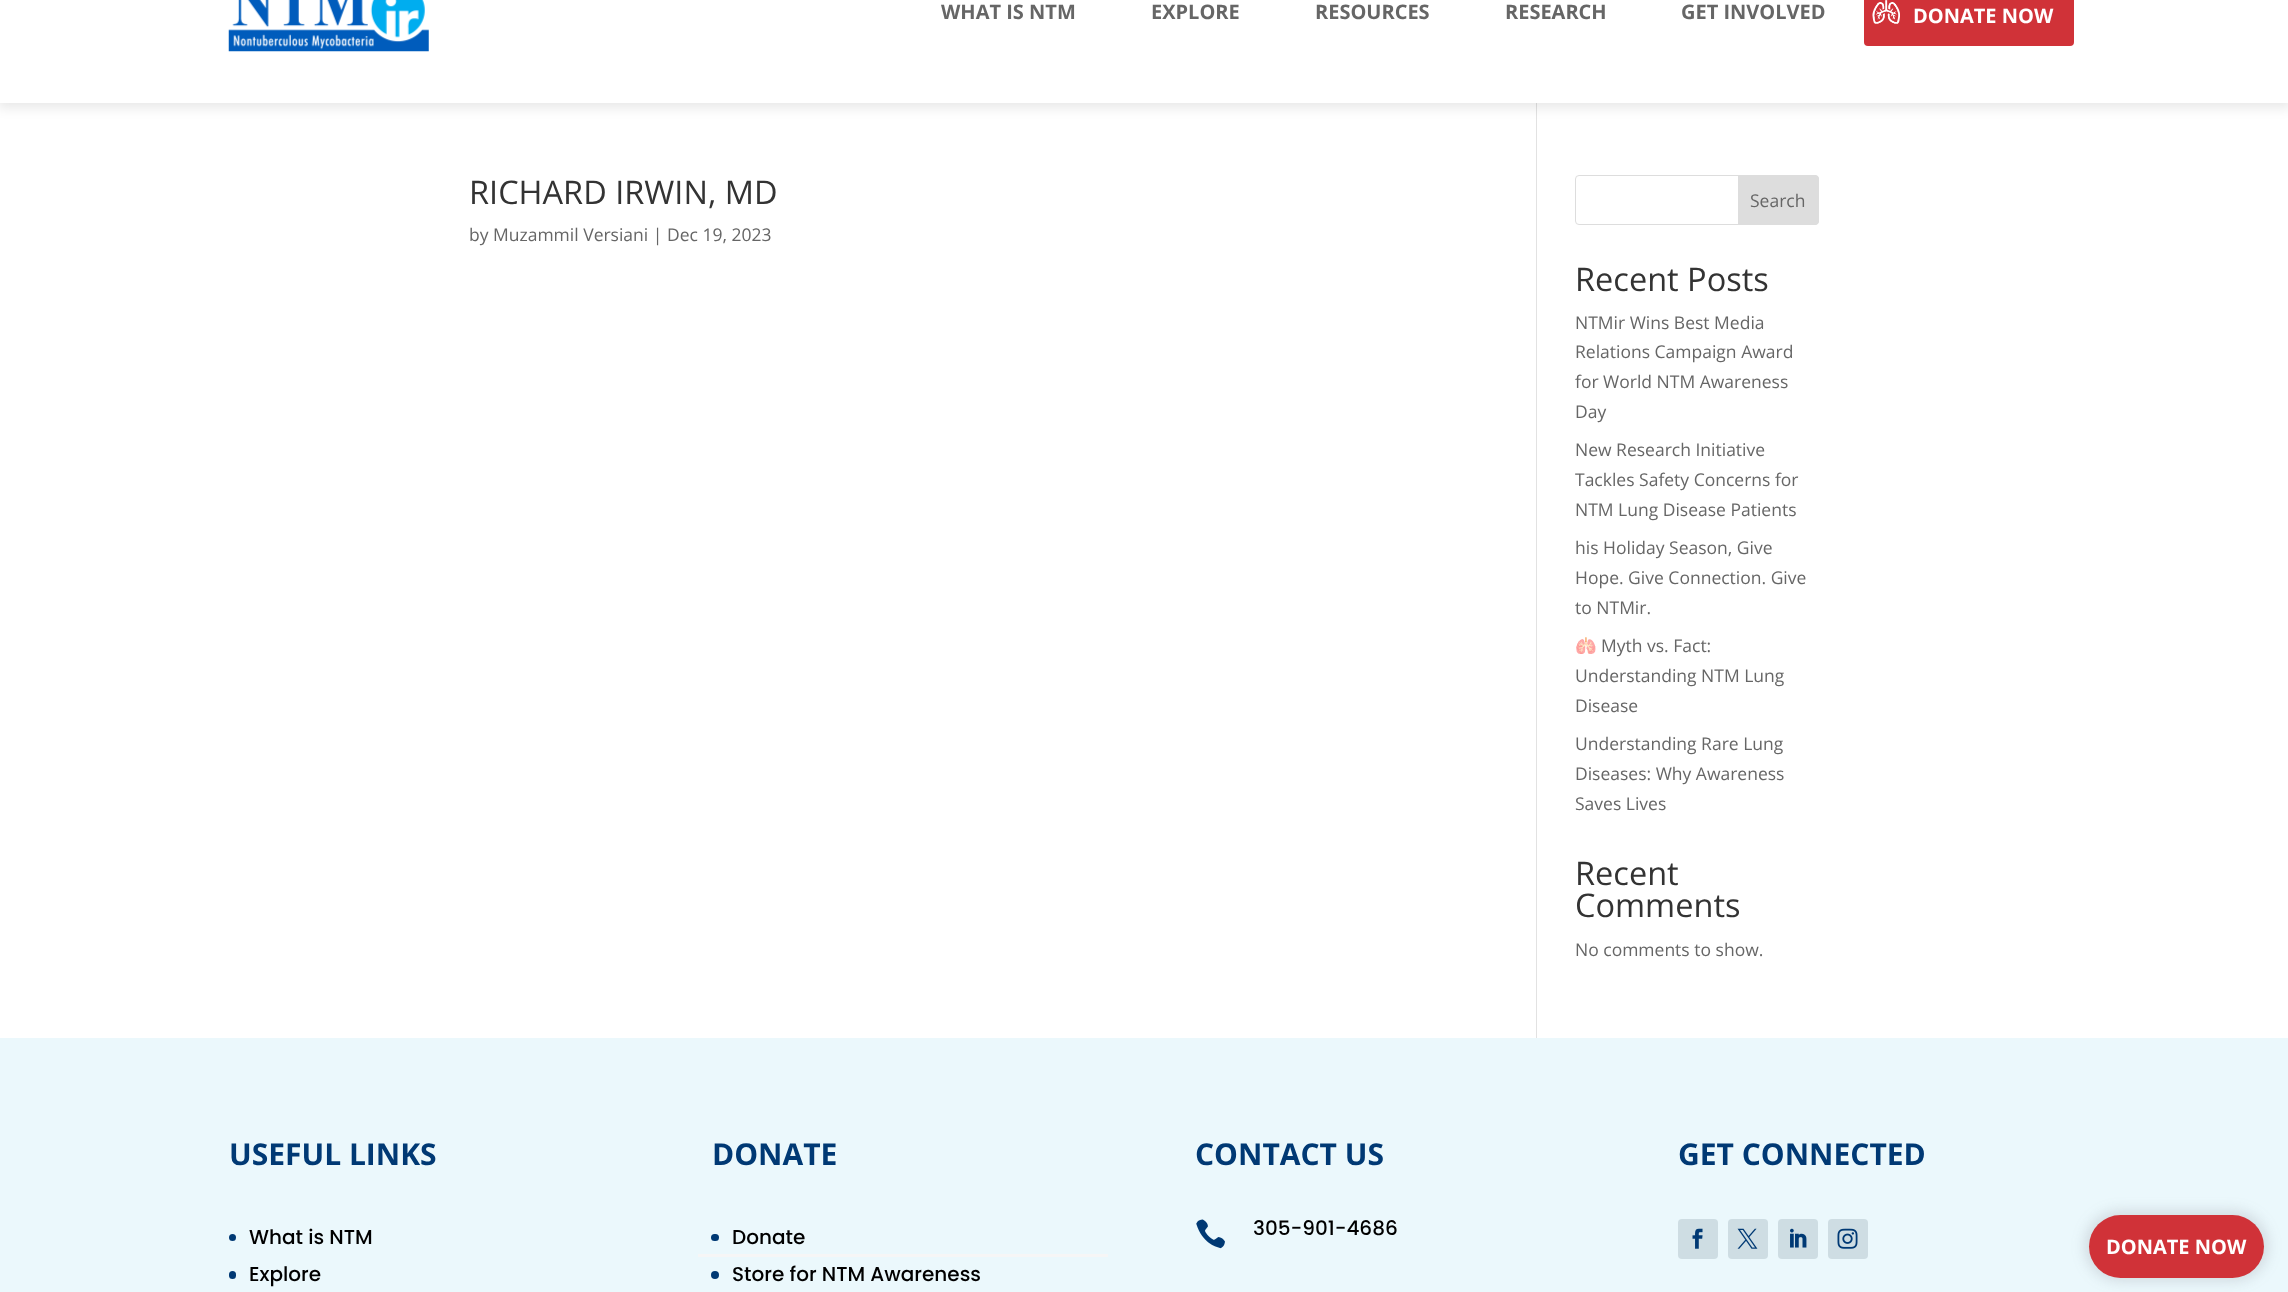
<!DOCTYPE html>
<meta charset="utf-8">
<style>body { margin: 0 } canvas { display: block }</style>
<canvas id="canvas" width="2288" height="1292"></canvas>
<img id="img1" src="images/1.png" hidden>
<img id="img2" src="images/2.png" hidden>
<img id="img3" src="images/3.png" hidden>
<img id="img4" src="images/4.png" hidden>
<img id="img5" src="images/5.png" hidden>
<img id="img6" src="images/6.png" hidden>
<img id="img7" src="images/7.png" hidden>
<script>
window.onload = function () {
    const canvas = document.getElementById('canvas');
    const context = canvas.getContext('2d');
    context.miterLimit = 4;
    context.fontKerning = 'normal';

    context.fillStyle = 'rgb(255, 255, 255)';
    context.fillRect(0, 0, 2288, 1292);
    context.fillStyle = 'rgb(226, 226, 226)';
    context.fillRect(1536, 103, 1, 935);
    context.fillStyle = 'rgba(0, 0, 0, 0.09)';
    context.filter = 'blur(6px)';
    context.beginPath();
    context.rect(-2, -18, 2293, 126);
    context.fill();
    context.filter = 'none';
    context.fillStyle = 'rgb(255, 255, 255)';
    context.fillRect(0, 0, 2288, 103);
    context.drawImage(document.getElementById('img1'), 228, 0, 201, 52);
    context.fillStyle = 'rgb(208, 50, 56)';
    context.beginPath();
    context.roundRect(1864, -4, 210, 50, 4);
    context.fill();
    context.drawImage(document.getElementById('img2'), 1872, 0, 28, 24);
    context.beginPath();
    context.roundRect(1575.5, 175.5, 243, 49, 3.5);
    context.strokeStyle = 'rgb(221, 221, 221)';
    context.stroke();
    context.fillStyle = 'rgb(221, 221, 221)';
    context.beginPath();
    context.roundRect(1738.5, 175.5, 80, 49, [0, 3.5, 3.5, 0]);
    context.fill();
    context.stroke();
    context.fillStyle = 'rgb(235, 248, 252)';
    context.fillRect(0, 1038, 2288, 254);
    context.fillStyle = 'rgb(0, 57, 116)';
    context.beginPath();
    context.arc(232.5, 1237.5, 3.5, 0, 2 * Math.PI);
    context.fill();
    context.beginPath();
    context.roundRect(229, 1271, 7, 8, 3.5);
    context.fill();
    context.beginPath();
    context.roundRect(711, 1234, 8, 7, 3.5);
    context.fill();
    context.fillStyle = 'rgb(246, 246, 246)';
    context.fillRect(698, 1254, 410, 3);
    context.fillStyle = 'rgb(0, 57, 116)';
    context.beginPath();
    context.arc(715, 1275, 4, 0, 2 * Math.PI);
    context.fill();
    context.drawImage(document.getElementById('img3'), 1196, 1219, 29, 30);
    context.fillStyle = 'rgb(206, 221, 227)';
    context.beginPath();
    context.roundRect(1678, 1219, 40, 40, 4);
    context.fill();
    context.drawImage(document.getElementById('img4'), 1692, 1228, 11, 21);
    context.beginPath();
    context.roundRect(1728, 1219, 40, 40, 4);
    context.fill();
    context.drawImage(document.getElementById('img5'), 1737, 1228, 21, 21);
    context.beginPath();
    context.roundRect(1778, 1219, 40, 40, 4);
    context.fill();
    context.drawImage(document.getElementById('img6'), 1790, 1228, 17, 20);
    context.beginPath();
    context.roundRect(1828, 1219, 40, 40, 4);
    context.fill();
    context.drawImage(document.getElementById('img7'), 1837, 1228, 21, 21);
    context.fillStyle = 'rgba(100, 100, 111, 0.2)';
    context.filter = 'blur(7px)';
    context.beginPath();
    context.roundRect(2085, 1211, 183, 70, 35);
    context.fill();
    context.filter = 'none';
    context.fillStyle = 'rgb(208, 50, 56)';
    context.beginPath();
    context.roundRect(2089, 1215, 175, 63, 31.5);
    context.fill();
    context.font = 'bold 20px Open Sans';
    context.fillStyle = 'rgb(102, 102, 102)';
    context.fillText('WHAT IS NTM', 941, 19);
    context.fillText('EXPLORE', 1151, 19);
    context.fillText('RESOURCES', 1315, 19);
    context.fillText('RESEARCH', 1505, 19);
    context.fillText('GET INVOLVED', 1681, 19);
    context.fillStyle = 'rgb(255, 255, 255)';
    context.fillText('DONATE NOW', 1913, 23);
    context.font = '32.5px Open Sans';
    context.fillStyle = 'rgb(51, 51, 51)';
    context.fillText('RICHARD IRWIN, MD', 469, 204);
    context.font = '17.5px Open Sans';
    context.fillStyle = 'rgb(102, 102, 102)';
    context.fillText('by Muzammil Versiani | Dec 19, 2023', 469, 241);
    context.fillText('Search', 1750, 207);
    context.font = '32.5px Open Sans';
    context.fillStyle = 'rgb(51, 51, 51)';
    context.fillText('Recent Posts', 1575, 291);
    context.font = '17.5px Open Sans';
    context.fillStyle = 'rgb(102, 102, 102)';
    context.fillText('NTMir Wins Best Media', 1575, 329);
    context.fillText('Relations Campaign Award', 1575, 358);
    context.fillText('for World NTM Awareness', 1575, 388);
    context.fillText('Day', 1575, 418);
    context.fillText('New Research Initiative', 1575, 456);
    context.fillText('Tackles Safety Concerns for', 1575, 486);
    context.fillText('NTM Lung Disease Patients', 1575, 516);
    context.fillText('his Holiday Season, Give', 1575, 554);
    context.fillText('Hope. Give Connection. Give', 1575, 584);
    context.fillText('to NTMir.', 1575, 614);
    context.font = '17.5px Noto Color Emoji';
    context.fillText('🫁', 1575, 652);
    context.font = '17.5px Open Sans';
    context.fillText('Myth vs. Fact:', 1601, 652);
    context.fillText('Understanding NTM Lung', 1575, 682);
    context.fillText('Disease', 1575, 712);
    context.fillText('Understanding Rare Lung', 1575, 750);
    context.fillText('Diseases: Why Awareness', 1575, 780);
    context.fillText('Saves Lives', 1575, 810);
    context.font = '32.5px Open Sans';
    context.fillStyle = 'rgb(51, 51, 51)';
    context.fillText('Recent', 1575, 885);
    context.fillText('Comments', 1575, 917);
    context.font = '17.5px Open Sans';
    context.fillStyle = 'rgb(102, 102, 102)';
    context.fillText('No comments to show.', 1575, 956);
    context.font = 'bold 30px Open Sans';
    context.fillStyle = 'rgb(0, 57, 116)';
    context.fillText('USEFUL LINKS', 229, 1165);
    context.font = '500 20px Poppins';
    context.fillStyle = 'rgb(0, 0, 0)';
    context.fillText('What is NTM', 249, 1244);
    context.fillText('Explore', 249, 1281);
    context.font = 'bold 30px Open Sans';
    context.fillStyle = 'rgb(0, 57, 116)';
    context.fillText('DONATE', 712, 1165);
    context.font = '500 20px Poppins';
    context.fillStyle = 'rgb(0, 0, 0)';
    context.fillText('Donate', 732, 1244);
    context.fillText('Store for NTM Awareness', 732, 1281);
    context.font = 'bold 30px Open Sans';
    context.fillStyle = 'rgb(0, 57, 116)';
    context.fillText('CONTACT US', 1195, 1165);
    context.font = '500 20px Poppins';
    context.fillStyle = 'rgb(0, 0, 0)';
    context.fillText('305-901-4686', 1253, 1235);
    context.font = 'bold 30px Open Sans';
    context.fillStyle = 'rgb(0, 57, 116)';
    context.fillText('GET CONNECTED', 1678, 1165);
    context.font = 'bold 20px Open Sans';
    context.fillStyle = 'rgb(255, 255, 255)';
    context.fillText('DONATE NOW', 2106, 1254);
};
</script>
